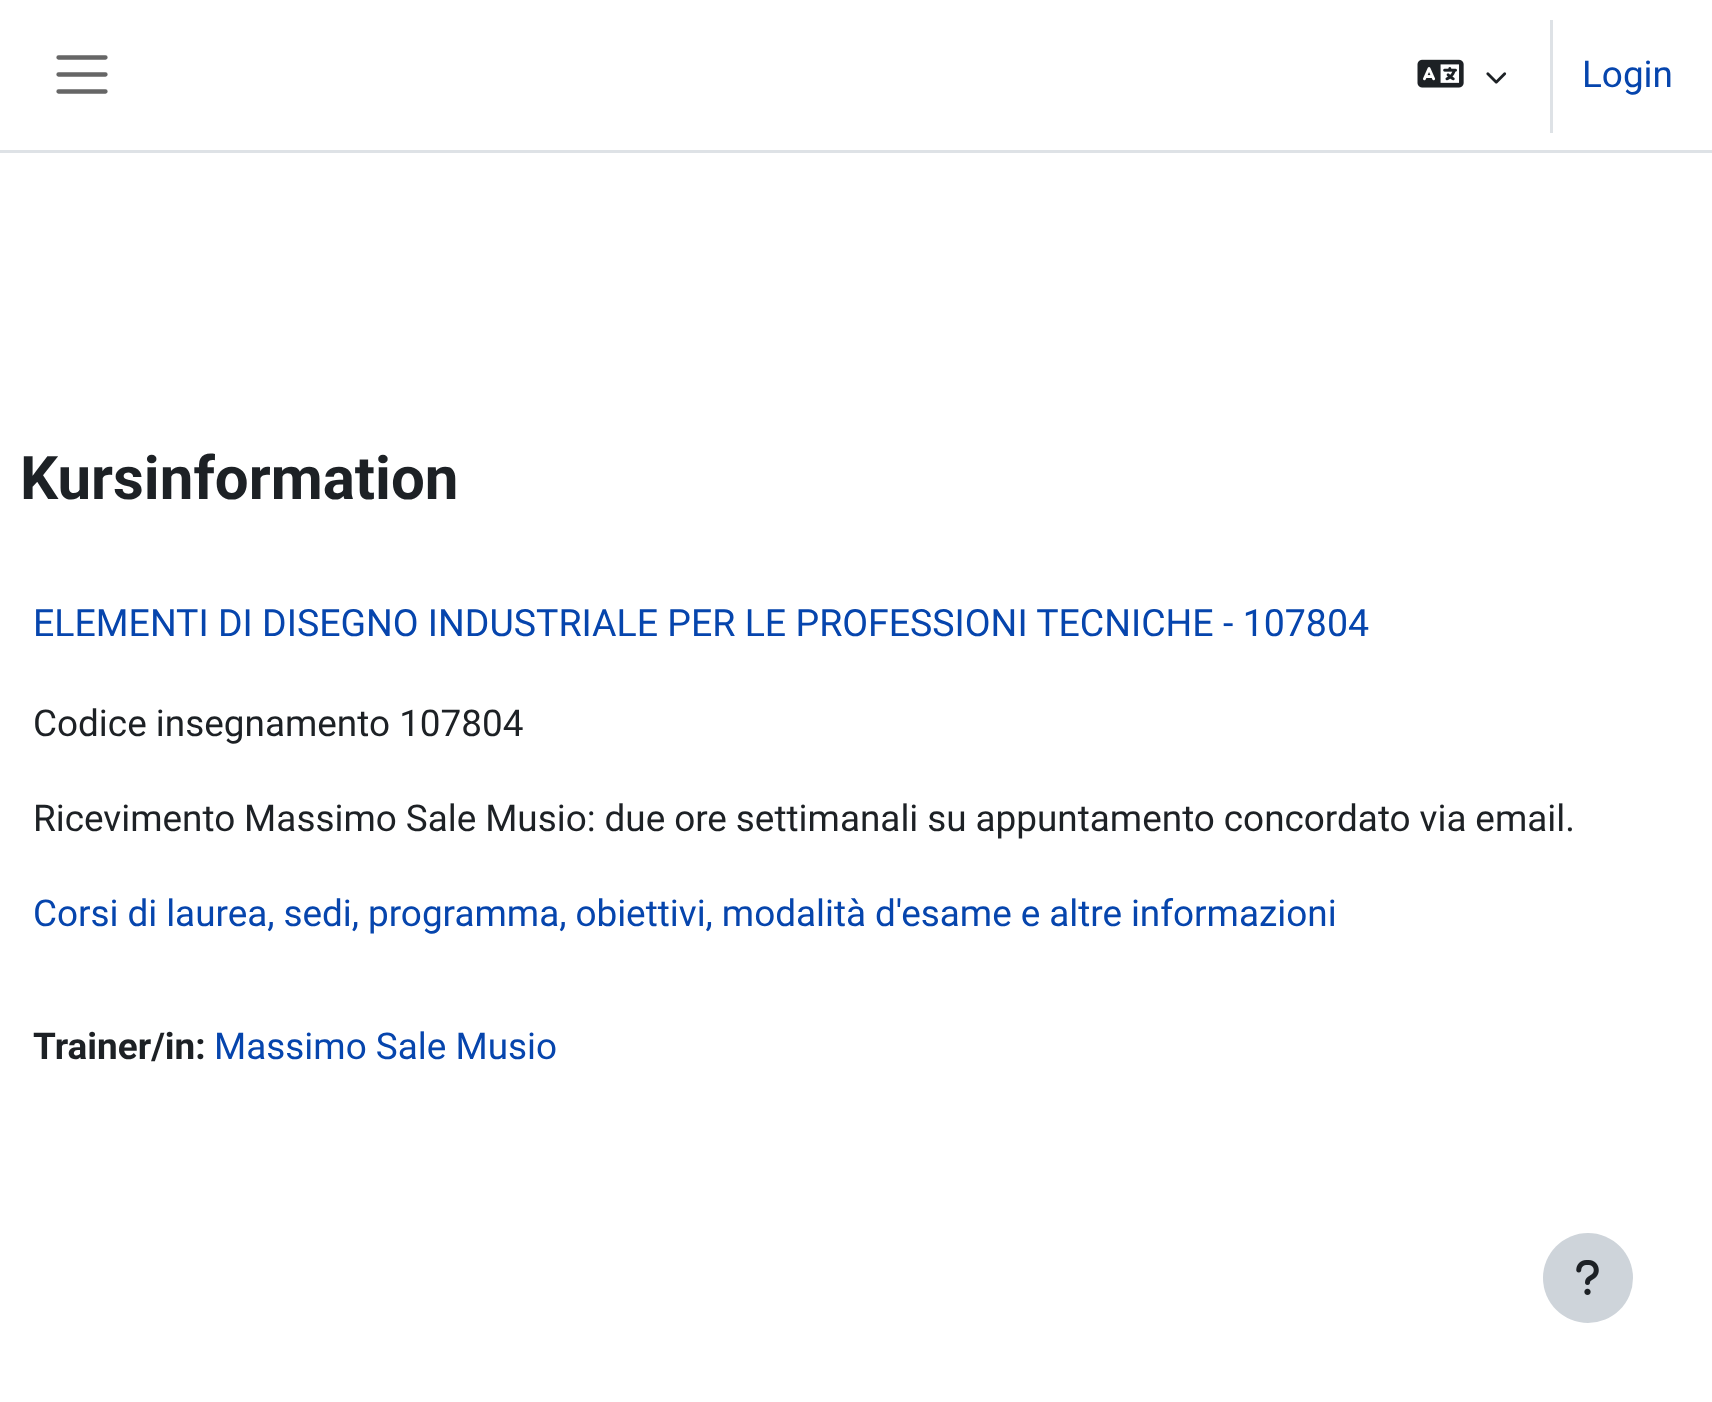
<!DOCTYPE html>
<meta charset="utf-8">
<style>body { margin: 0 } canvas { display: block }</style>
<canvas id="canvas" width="1712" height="1402"></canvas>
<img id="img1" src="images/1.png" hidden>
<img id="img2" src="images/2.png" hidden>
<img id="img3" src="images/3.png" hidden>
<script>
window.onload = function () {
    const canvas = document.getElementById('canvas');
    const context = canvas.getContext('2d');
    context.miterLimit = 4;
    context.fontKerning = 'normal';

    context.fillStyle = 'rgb(255, 255, 255)';
    context.fillRect(0, 0, 1712, 1402);
    context.fillStyle = 'rgb(222, 226, 230)';
    context.fillRect(0, 150, 1712, 3);
    context.beginPath();
    context.moveTo(58.5, 57.5);
    context.lineTo(105.5, 57.5);
    context.moveTo(58.5, 74.5);
    context.lineTo(105.5, 74.5);
    context.moveTo(58.5, 91.5);
    context.lineTo(105.5, 91.5);
    context.strokeStyle = 'rgb(102, 102, 102)';
    context.lineWidth = 4.3;
    context.lineCap = 'round';
    context.stroke();
    context.drawImage(document.getElementById('img1'), 1417, 59, 47, 29);
    context.drawImage(document.getElementById('img2'), 1486, 72, 21, 12);
    context.fillRect(1550, 20, 3, 113);
    context.fillStyle = 'rgb(206, 212, 218)';
    context.beginPath();
    context.arc(1588, 1278, 45, 0, 2 * Math.PI);
    context.fill();
    context.drawImage(document.getElementById('img3'), 1576, 1260, 23, 35);
    context.font = '36.9px Roboto';
    context.fillStyle = 'rgb(6, 69, 173)';
    context.fillText('Login', 1582, 87);
    context.font = 'bold 60px Roboto';
    context.fillStyle = 'rgb(29, 33, 37)';
    context.fillText('Kursinformation', 20, 499);
    context.font = '37.5px Roboto';
    context.fillStyle = 'rgb(6, 69, 173)';
    context.fillText('ELEMENTI DI DISEGNO INDUSTRIALE PER LE PROFESSIONI TECNICHE - 107804', 33, 636);
    context.font = '36.9px Roboto';
    context.fillStyle = 'rgb(29, 33, 37)';
    context.fillText('Codice insegnamento 107804', 33, 736);
    context.wordSpacing = '-0.25px';
    context.fillText('Ricevimento Massimo Sale Musio: due ore settimanali su appuntamento concordato via email.', 33, 831);
    context.fillStyle = 'rgb(6, 69, 173)';
    context.fillText('Corsi di laurea, sedi, programma, obiettivi, modalità d\'esame e altre informazioni', 33, 926);
    context.wordSpacing = '0px';
    context.font = 'bold 36.9px Roboto';
    context.fillStyle = 'rgb(29, 33, 37)';
    context.fillText('Trainer/in:', 33, 1059);
    context.font = '36.9px Roboto';
    context.fillStyle = 'rgb(6, 69, 173)';
    context.fillText('Massimo Sale Musio', 214, 1059);
};
</script>
